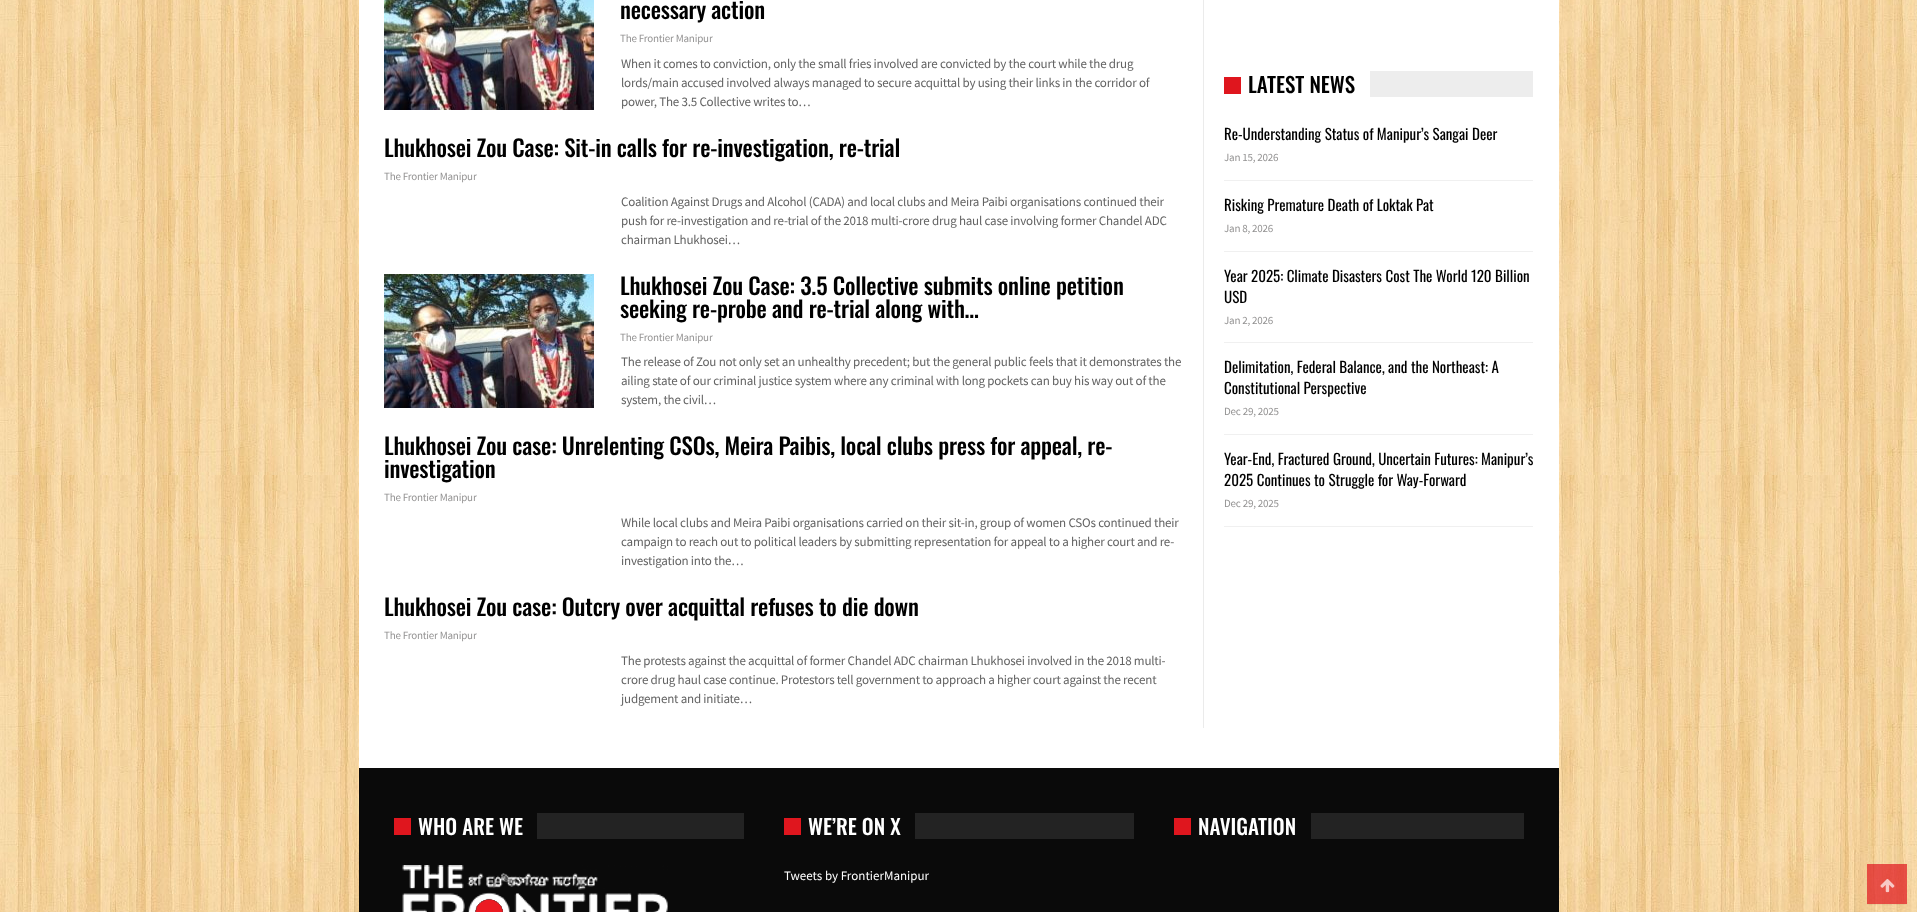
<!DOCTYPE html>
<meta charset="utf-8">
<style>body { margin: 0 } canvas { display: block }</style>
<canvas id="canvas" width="1917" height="912"></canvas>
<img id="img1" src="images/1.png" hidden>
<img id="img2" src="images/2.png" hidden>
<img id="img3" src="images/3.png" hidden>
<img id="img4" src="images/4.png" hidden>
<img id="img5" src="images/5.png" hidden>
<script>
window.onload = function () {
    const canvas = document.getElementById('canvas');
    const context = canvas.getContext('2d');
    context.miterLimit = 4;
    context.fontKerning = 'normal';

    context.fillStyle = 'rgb(255, 255, 255)';
    context.fillRect(0, 0, 1917, 912);
    context.drawImage(document.getElementById('img1'), 0, 0, 1917, 912);
    context.fillRect(359, 0, 1200, 768);
    context.drawImage(document.getElementById('img2'), 384, 0, 210, 110);
    context.drawImage(document.getElementById('img3'), 384, 274, 210, 134);
    context.fillStyle = 'rgb(235, 235, 235)';
    context.fillRect(1203, 0, 1, 728);
    context.fillStyle = 'rgb(223, 22, 30)';
    context.fillRect(1224, 77, 17, 17);
    context.fillStyle = 'rgb(237, 237, 237)';
    context.fillRect(1370, 71, 163, 26);
    context.fillStyle = 'rgb(240, 240, 240)';
    context.fillRect(1224, 180, 309, 1);
    context.fillRect(1224, 251, 309, 1);
    context.fillRect(1224, 342, 309, 1);
    context.fillRect(1224, 434, 309, 1);
    context.fillRect(1224, 526, 309, 1);
    context.fillStyle = 'rgb(10, 10, 10)';
    context.fillRect(359, 768, 1200, 144);
    context.fillStyle = 'rgb(223, 22, 30)';
    context.fillRect(394, 818, 17, 17);
    context.fillStyle = 'rgb(35, 35, 35)';
    context.fillRect(537, 813, 207, 26);
    context.drawImage(document.getElementById('img4'), 402, 865, 266, 47);
    context.fillStyle = 'rgb(223, 22, 30)';
    context.fillRect(784, 818, 17, 17);
    context.fillStyle = 'rgb(35, 35, 35)';
    context.fillRect(915, 813, 219, 26);
    context.fillStyle = 'rgb(223, 22, 30)';
    context.fillRect(1174, 818, 17, 17);
    context.fillStyle = 'rgb(35, 35, 35)';
    context.fillRect(1311, 813, 213, 26);
    context.save();
    context.beginPath();
    context.rect(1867, 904, 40, 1);
    context.clip();
    context.fillStyle = 'rgba(0, 0, 0, 0.06)';
    context.filter = 'blur(1px)';
    context.beginPath();
    context.rect(1867, 865, 40, 40);
    context.fill();
    context.filter = 'none';
    context.restore();
    context.fillStyle = 'rgba(223, 22, 30, 0.7)';
    context.fillRect(1867, 864, 40, 40);
    context.drawImage(document.getElementById('img5'), 1880, 879, 15, 14);
    context.letterSpacing = '-0.2px';
    context.font = '500 23px Oswald';
    context.fillStyle = 'rgb(0, 0, 0)';
    context.fillText('necessary action', 620, 19);
    context.font = '11px Source Sans Pro';
    context.fillStyle = 'rgb(147, 146, 146)';
    context.fillText('The Frontier Manipur', 620, 42);
    context.font = '13px Source Sans Pro';
    context.fillStyle = 'rgb(99, 99, 99)';
    context.fillText('When it comes to conviction, only the small fries involved are convicted by the court while the drug', 621, 68);
    context.fillText('lords/main accused involved always managed to secure acquittal by using their links in the corridor of', 621, 87);
    context.fillText('power, The 3.5 Collective writes to…', 621, 106);
    context.font = '500 23px Oswald';
    context.fillStyle = 'rgb(0, 0, 0)';
    context.fillText('Lhukhosei Zou Case: Sit-in calls for re-investigation, re-trial', 384, 157);
    context.font = '11px Source Sans Pro';
    context.fillStyle = 'rgb(147, 146, 146)';
    context.fillText('The Frontier Manipur', 384, 180);
    context.font = '13px Source Sans Pro';
    context.fillStyle = 'rgb(99, 99, 99)';
    context.fillText('Coalition Against Drugs and Alcohol (CADA) and local clubs and Meira Paibi organisations continued their', 621, 206);
    context.fillText('push for re-investigation and re-trial of the 2018 multi-crore drug haul case involving former Chandel ADC', 621, 225);
    context.fillText('chairman Lhukhosei…', 621, 244);
    context.font = '500 23px Oswald';
    context.fillStyle = 'rgb(0, 0, 0)';
    context.fillText('Lhukhosei Zou Case: 3.5 Collective submits online petition', 620, 295);
    context.fillText('seeking re-probe and re-trial along with…', 620, 318);
    context.font = '11px Source Sans Pro';
    context.fillStyle = 'rgb(147, 146, 146)';
    context.fillText('The Frontier Manipur', 620, 341);
    context.font = '13px Source Sans Pro';
    context.fillStyle = 'rgb(99, 99, 99)';
    context.fillText('The release of Zou not only set an unhealthy precedent; but the general public feels that it demonstrates the', 621, 366);
    context.fillText('ailing state of our criminal justice system where any criminal with long pockets can buy his way out of the', 621, 385);
    context.fillText('system, the civil…', 621, 404);
    context.font = '500 23px Oswald';
    context.fillStyle = 'rgb(0, 0, 0)';
    context.fillText('Lhukhosei Zou case: Unrelenting CSOs, Meira Paibis, local clubs press for appeal, re-', 384, 455);
    context.fillText('investigation', 384, 478);
    context.font = '11px Source Sans Pro';
    context.fillStyle = 'rgb(147, 146, 146)';
    context.fillText('The Frontier Manipur', 384, 501);
    context.font = '13px Source Sans Pro';
    context.fillStyle = 'rgb(99, 99, 99)';
    context.fillText('While local clubs and Meira Paibi organisations carried on their sit-in, group of women CSOs continued their', 621, 527);
    context.fillText('campaign to reach out to political leaders by submitting representation for appeal to a higher court and re-', 621, 546);
    context.fillText('investigation into the…', 621, 565);
    context.font = '500 23px Oswald';
    context.fillStyle = 'rgb(0, 0, 0)';
    context.fillText('Lhukhosei Zou case: Outcry over acquittal refuses to die down', 384, 616);
    context.font = '11px Source Sans Pro';
    context.fillStyle = 'rgb(147, 146, 146)';
    context.fillText('The Frontier Manipur', 384, 639);
    context.font = '13px Source Sans Pro';
    context.fillStyle = 'rgb(99, 99, 99)';
    context.fillText('The protests against the acquittal of former Chandel ADC chairman Lhukhosei involved in the 2018 multi-', 621, 665);
    context.fillText('crore drug haul case continue. Protestors tell government to approach a higher court against the recent', 621, 684);
    context.fillText('judgement and initiate…', 621, 703);
    context.letterSpacing = '0px';
    context.font = '500 21px Oswald';
    context.fillStyle = 'rgb(0, 0, 0)';
    context.fillText('LATEST NEWS', 1248, 93);
    context.font = '15px Oswald';
    context.fillText('Re-Understanding Status of Manipur’s Sangai Deer', 1224, 140);
    context.letterSpacing = '-0.2px';
    context.font = '11px Source Sans Pro';
    context.fillStyle = 'rgb(147, 146, 146)';
    context.fillText('Jan 15, 2026', 1224, 161);
    context.letterSpacing = '0px';
    context.font = '15px Oswald';
    context.fillStyle = 'rgb(0, 0, 0)';
    context.fillText('Risking Premature Death of Loktak Pat', 1224, 211);
    context.letterSpacing = '-0.2px';
    context.font = '11px Source Sans Pro';
    context.fillStyle = 'rgb(147, 146, 146)';
    context.fillText('Jan 8, 2026', 1224, 232);
    context.letterSpacing = '0px';
    context.font = '15px Oswald';
    context.fillStyle = 'rgb(0, 0, 0)';
    context.fillText('Year 2025: Climate Disasters Cost The World 120 Billion', 1224, 282);
    context.fillText('USD', 1224, 303);
    context.letterSpacing = '-0.2px';
    context.font = '11px Source Sans Pro';
    context.fillStyle = 'rgb(147, 146, 146)';
    context.fillText('Jan 2, 2026', 1224, 324);
    context.letterSpacing = '0px';
    context.font = '15px Oswald';
    context.fillStyle = 'rgb(0, 0, 0)';
    context.fillText('Delimitation, Federal Balance, and the Northeast: A', 1224, 373);
    context.fillText('Constitutional Perspective', 1224, 394);
    context.letterSpacing = '-0.2px';
    context.font = '11px Source Sans Pro';
    context.fillStyle = 'rgb(147, 146, 146)';
    context.fillText('Dec 29, 2025', 1224, 415);
    context.letterSpacing = '0px';
    context.font = '15px Oswald';
    context.fillStyle = 'rgb(0, 0, 0)';
    context.fillText('Year-End, Fractured Ground, Uncertain Futures: Manipur’s', 1224, 465);
    context.fillText('2025 Continues to Struggle for Way-Forward', 1224, 486);
    context.letterSpacing = '-0.2px';
    context.font = '11px Source Sans Pro';
    context.fillStyle = 'rgb(147, 146, 146)';
    context.fillText('Dec 29, 2025', 1224, 507);
    context.letterSpacing = '0px';
    context.font = '500 21px Oswald';
    context.fillStyle = 'rgb(255, 255, 255)';
    context.fillText('WHO ARE WE', 418, 835);
    context.fillText('WE’RE ON X', 808, 835);
    context.font = '13px Source Sans Pro';
    context.fillText('Tweets by FrontierManipur', 784, 880);
    context.font = '500 21px Oswald';
    context.fillText('NAVIGATION', 1198, 835);
};
</script>
